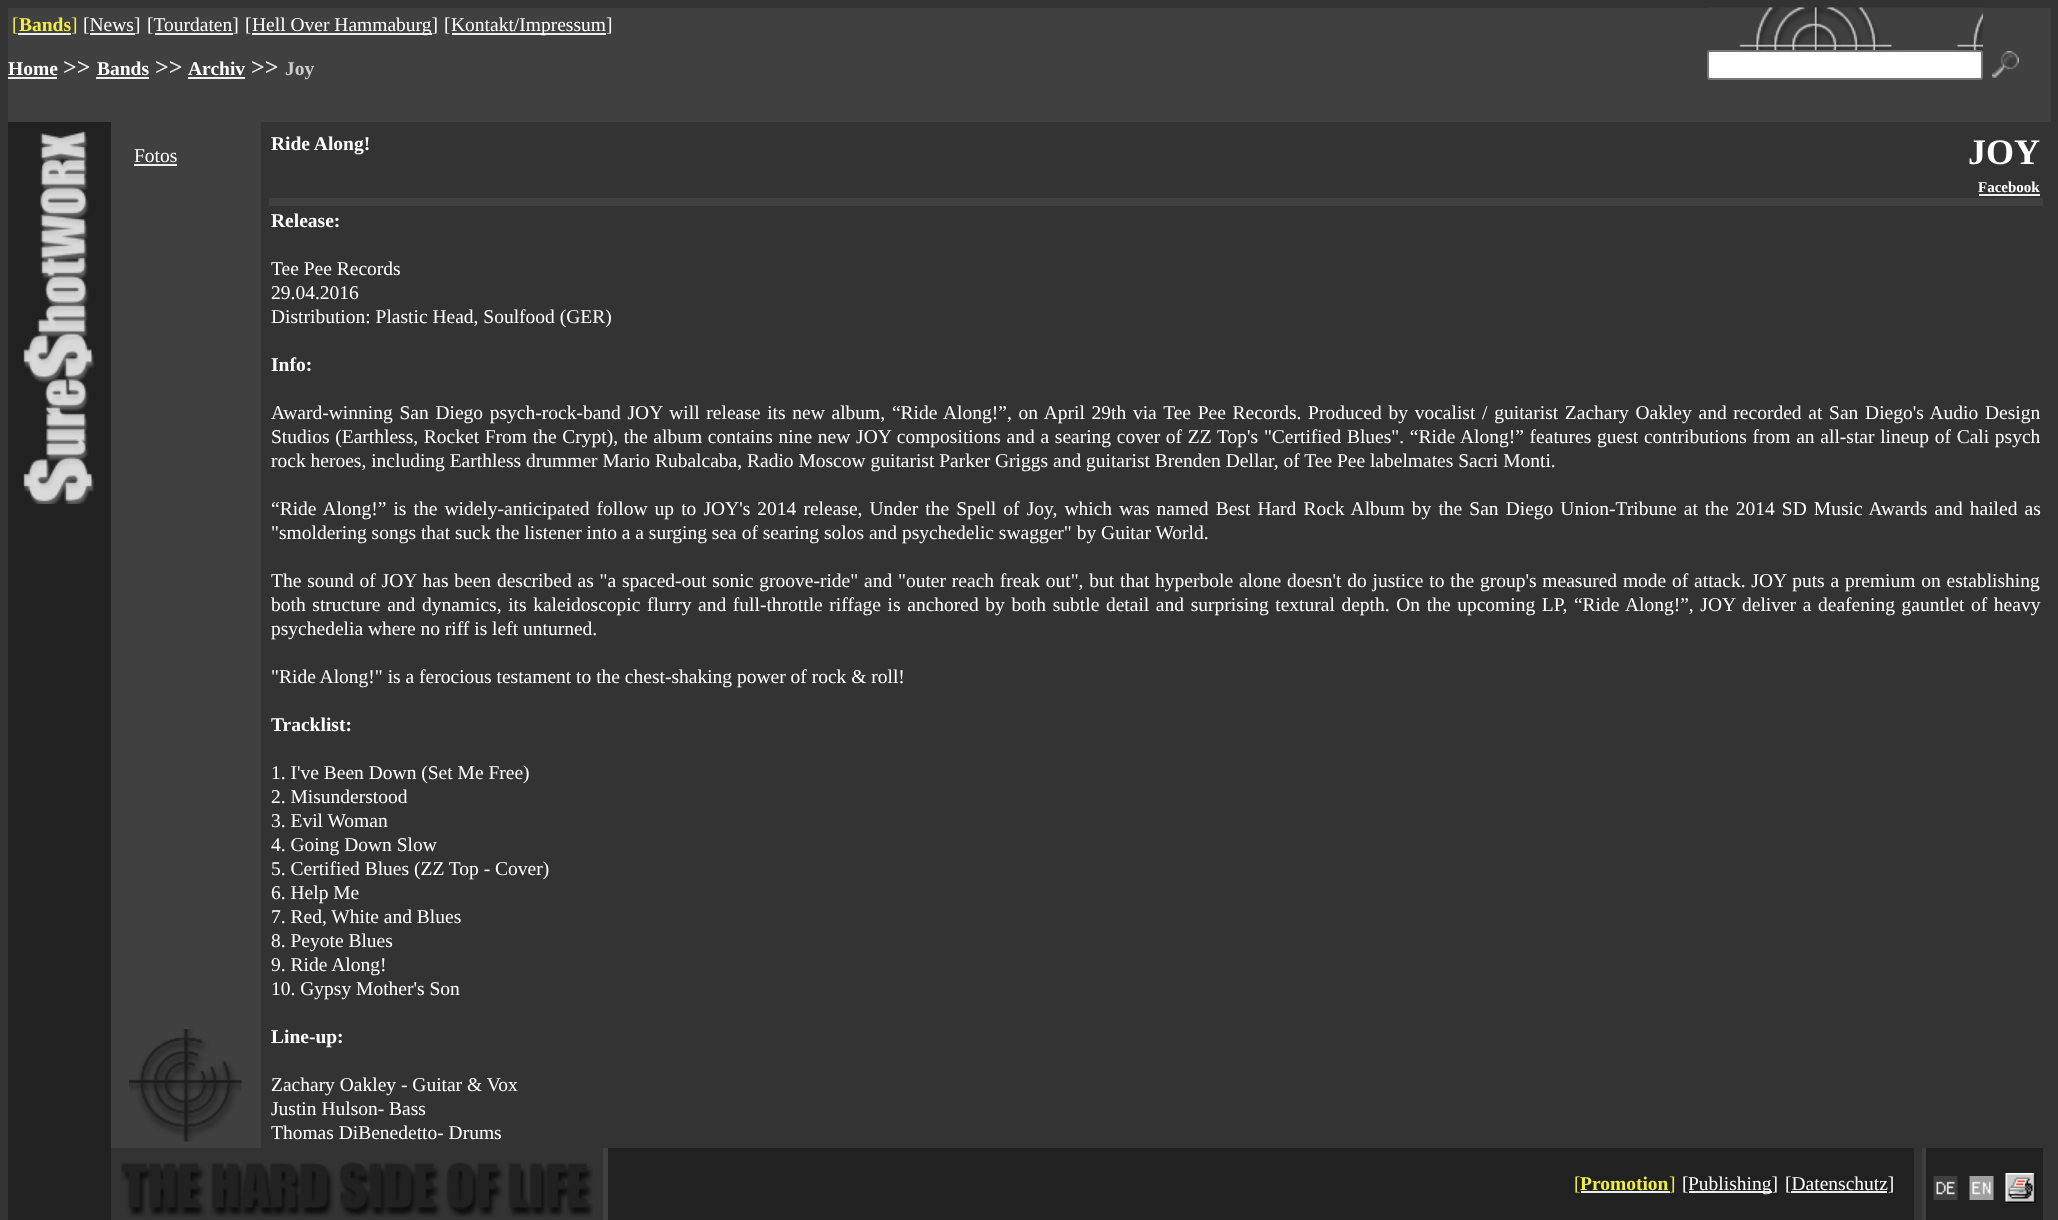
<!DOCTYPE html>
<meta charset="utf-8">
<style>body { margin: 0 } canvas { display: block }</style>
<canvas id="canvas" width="2058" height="1220"></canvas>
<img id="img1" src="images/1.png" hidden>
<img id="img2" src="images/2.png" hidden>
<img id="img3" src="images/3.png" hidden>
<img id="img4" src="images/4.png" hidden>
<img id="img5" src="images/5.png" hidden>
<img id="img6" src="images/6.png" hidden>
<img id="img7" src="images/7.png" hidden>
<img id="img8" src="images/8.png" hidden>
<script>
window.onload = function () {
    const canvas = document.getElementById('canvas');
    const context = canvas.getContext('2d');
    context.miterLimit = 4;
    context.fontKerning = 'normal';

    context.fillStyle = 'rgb(51, 51, 51)';
    context.fillRect(0, 0, 2058, 1220);
    context.fillStyle = 'rgb(64, 64, 64)';
    context.fillRect(8, 8, 2043, 114);
    context.fillStyle = 'rgb(238, 238, 238)';
    context.fillRect(18, 33, 53, 2);
    context.fillRect(252, 33, 180, 2);
    context.fillRect(452, 33, 154, 2);
    context.drawImage(document.getElementById('img1'), 1707, 7, 276, 46);
    context.fillStyle = 'rgb(255, 255, 255)';
    context.beginPath();
    context.roundRect(1708, 51, 274, 28, 2);
    context.fill();
    context.strokeStyle = 'rgb(118, 118, 118)';
    context.lineWidth = 2;
    context.stroke();
    context.drawImage(document.getElementById('img2'), 1992, 51, 27, 27);
    context.fillStyle = 'rgb(238, 238, 238)';
    context.fillRect(8, 77, 49, 2);
    context.fillRect(96, 77, 53, 2);
    context.fillRect(188, 77, 57, 2);
    context.fillStyle = 'rgb(33, 33, 33)';
    context.fillRect(8, 122, 103, 1098);
    context.drawImage(document.getElementById('img3'), 23, 131, 72, 373);
    context.fillStyle = 'rgb(64, 64, 64)';
    context.fillRect(111, 122, 18, 1026);
    context.fillRect(129, 122, 113, 1026);
    context.fillStyle = 'rgb(238, 238, 238)';
    context.fillRect(134, 164, 43, 2);
    context.fillStyle = 'rgb(64, 64, 64)';
    context.fillRect(242, 122, 19, 1026);
    context.fillStyle = 'rgb(238, 238, 238)';
    context.fillRect(1979, 194, 61, 2);
    context.fillStyle = 'rgb(64, 64, 64)';
    context.fillRect(269, 198, 1774, 8);
    context.drawImage(document.getElementById('img4'), 129, 1029, 113, 113);
    context.drawImage(document.getElementById('img5'), 121, 1162, 472, 55);
    context.fillRect(603, 1148, 5, 72);
    context.fillStyle = 'rgb(33, 33, 33)';
    context.fillRect(608, 1148, 1306, 72);
    context.fillStyle = 'rgb(238, 238, 238)';
    context.fillRect(1581, 1191, 89, 2);
    context.fillRect(1689, 1191, 83, 2);
    context.fillStyle = 'rgb(64, 64, 64)';
    context.fillRect(1922, 1148, 4, 72);
    context.fillStyle = 'rgb(33, 33, 33)';
    context.fillRect(1926, 1148, 117, 72);
    context.drawImage(document.getElementById('img6'), 1933, 1176, 25, 24);
    context.drawImage(document.getElementById('img7'), 1969, 1176, 25, 24);
    context.drawImage(document.getElementById('img8'), 2005, 1173, 31, 30);
    context.font = '19.5px Liberation Serif';
    context.fillStyle = 'rgb(238, 238, 68)';
    context.fillText('[', 12, 31);
    context.font = 'bold 19.5px Liberation Serif';
    context.fillText('Bands', 19, 31);
    context.font = '19.5px Liberation Serif';
    context.fillText(']', 71, 31);
    context.fillStyle = 'rgb(255, 255, 255)';
    context.fillText('[News]', 83, 31);
    context.fillStyle = 'rgb(238, 238, 238)';
    context.fillRect(90, 33, 45, 2);
    context.fillStyle = 'rgb(255, 255, 255)';
    context.fillText('[Tourdaten]', 147, 31);
    context.fillStyle = 'rgb(238, 238, 238)';
    context.fillRect(155, 33, 78, 2);
    context.fillStyle = 'rgb(255, 255, 255)';
    context.fillText('[', 245, 31);
    context.fillText('Hell Over Hammaburg]', 252, 31);
    context.fillText('[', 444, 31);
    context.fillText('Kontakt/Impressum]', 451, 31);
    context.font = 'bold 19.5px Liberation Serif';
    context.fillText('Home', 8, 75);
    context.font = 'bold 24px Liberation Serif';
    context.fillStyle = 'rgb(238, 238, 238)';
    context.fillText('>>', 63, 75);
    context.font = 'bold 19.5px Liberation Serif';
    context.fillStyle = 'rgb(255, 255, 255)';
    context.fillText('Bands', 97, 75);
    context.font = 'bold 24px Liberation Serif';
    context.fillStyle = 'rgb(238, 238, 238)';
    context.fillText('>>', 155, 75);
    context.font = 'bold 19.5px Liberation Serif';
    context.fillStyle = 'rgb(255, 255, 255)';
    context.fillText('Archiv', 188, 75);
    context.font = 'bold 24px Liberation Serif';
    context.fillStyle = 'rgb(238, 238, 238)';
    context.fillText('>>', 251, 75);
    context.font = 'bold 19.5px Liberation Serif';
    context.fillStyle = 'rgb(204, 204, 204)';
    context.fillText('Joy', 285, 75);
    context.font = '19.5px Liberation Serif';
    context.fillStyle = 'rgb(255, 255, 255)';
    context.fillText('Fotos', 134, 162);
    context.font = 'bold 19.5px Liberation Serif';
    context.fillText('Ride Along!', 271, 150);
    context.font = 'bold 36px Liberation Serif';
    context.fillText('JOY', 1968, 164);
    context.font = 'bold 15px Liberation Serif';
    context.fillText('Facebook', 1978, 192);
    context.font = 'bold 19.5px Liberation Serif';
    context.fillText('Release:', 271, 227);
    context.font = '19.5px Liberation Serif';
    context.fillText('Tee Pee Records', 271, 275);
    context.fillText('29.04.2016', 271, 299);
    context.fillText('Distribution: Plastic Head, Soulfood (GER)', 271, 323);
    context.font = 'bold 19.5px Liberation Serif';
    context.fillText('Info:', 271, 371);
    context.wordSpacing = '1.85px';
    context.font = '19.5px Liberation Serif';
    context.fillText('Award-winning San Diego psych-rock-band JOY will release its new album, “Ride Along!”, on April 29th via Tee Pee Records. Produced by vocalist / guitarist Zachary Oakley and recorded at San Diego\'s Audio Design', 271, 419);
    context.wordSpacing = '0.85px';
    context.fillText('Studios (Earthless, Rocket From the Crypt), the album contains nine new JOY compositions and a searing cover of ZZ Top\'s "Certified Blues". “Ride Along!” features guest contributions from an all-star lineup of Cali psych', 271, 443);
    context.wordSpacing = '0px';
    context.fillText('rock heroes, including Earthless drummer Mario Rubalcaba, Radio Moscow guitarist Parker Griggs and guitarist Brenden Dellar, of Tee Pee labelmates Sacri Monti.', 271, 467);
    context.wordSpacing = '2.2px';
    context.fillText('“Ride Along!” is the widely-anticipated follow up to JOY\'s 2014 release, Under the Spell of Joy, which was named Best Hard Rock Album by the San Diego Union-Tribune at the 2014 SD Music Awards and hailed as', 271, 515);
    context.wordSpacing = '0px';
    context.fillText('"smoldering songs that suck the listener into a a surging sea of searing solos and psychedelic swagger" by Guitar World.', 271, 539);
    context.wordSpacing = '0.95px';
    context.fillText('The sound of JOY has been described as "a spaced-out sonic groove-ride" and "outer reach freak out", but that hyperbole alone doesn\'t do justice to the group\'s measured mode of attack. JOY puts a premium on establishing', 271, 587);
    context.wordSpacing = '1.75px';
    context.fillText('both structure and dynamics, its kaleidoscopic flurry and full-throttle riffage is anchored by both subtle detail and surprising textural depth. On the upcoming LP, “Ride Along!”, JOY deliver a deafening gauntlet of heavy', 271, 611);
    context.wordSpacing = '0px';
    context.fillText('psychedelia where no riff is left unturned.', 271, 635);
    context.fillText('"Ride Along!" is a ferocious testament to the chest-shaking power of rock & roll!', 271, 683);
    context.font = 'bold 19.5px Liberation Serif';
    context.fillText('Tracklist:', 271, 731);
    context.font = '19.5px Liberation Serif';
    context.fillText('1. I\'ve Been Down (Set Me Free)', 271, 779);
    context.fillText('2. Misunderstood', 271, 803);
    context.fillText('3. Evil Woman', 271, 827);
    context.fillText('4. Going Down Slow', 271, 851);
    context.fillText('5. Certified Blues (ZZ Top - Cover)', 271, 875);
    context.fillText('6. Help Me', 271, 899);
    context.fillText('7. Red, White and Blues', 271, 923);
    context.fillText('8. Peyote Blues', 271, 947);
    context.fillText('9. Ride Along!', 271, 971);
    context.fillText('10. Gypsy Mother\'s Son', 271, 995);
    context.font = 'bold 19.5px Liberation Serif';
    context.fillText('Line-up:', 271, 1043);
    context.font = '19.5px Liberation Serif';
    context.fillText('Zachary Oakley - Guitar & Vox', 271, 1091);
    context.fillText('Justin Hulson- Bass', 271, 1115);
    context.fillText('Thomas DiBenedetto- Drums', 271, 1139);
    context.fillStyle = 'rgb(238, 238, 68)';
    context.fillText('[', 1574, 1190);
    context.font = 'bold 19.5px Liberation Serif';
    context.fillText('Promotion', 1580, 1190);
    context.font = '19.5px Liberation Serif';
    context.fillText(']', 1669, 1190);
    context.fillStyle = 'rgb(255, 255, 255)';
    context.fillText('[', 1682, 1190);
    context.fillText('Publishing]', 1688, 1190);
    context.fillText('[Datenschutz]', 1785, 1190);
    context.fillStyle = 'rgb(238, 238, 238)';
    context.fillRect(1791, 1191, 96, 2);
};
</script>
